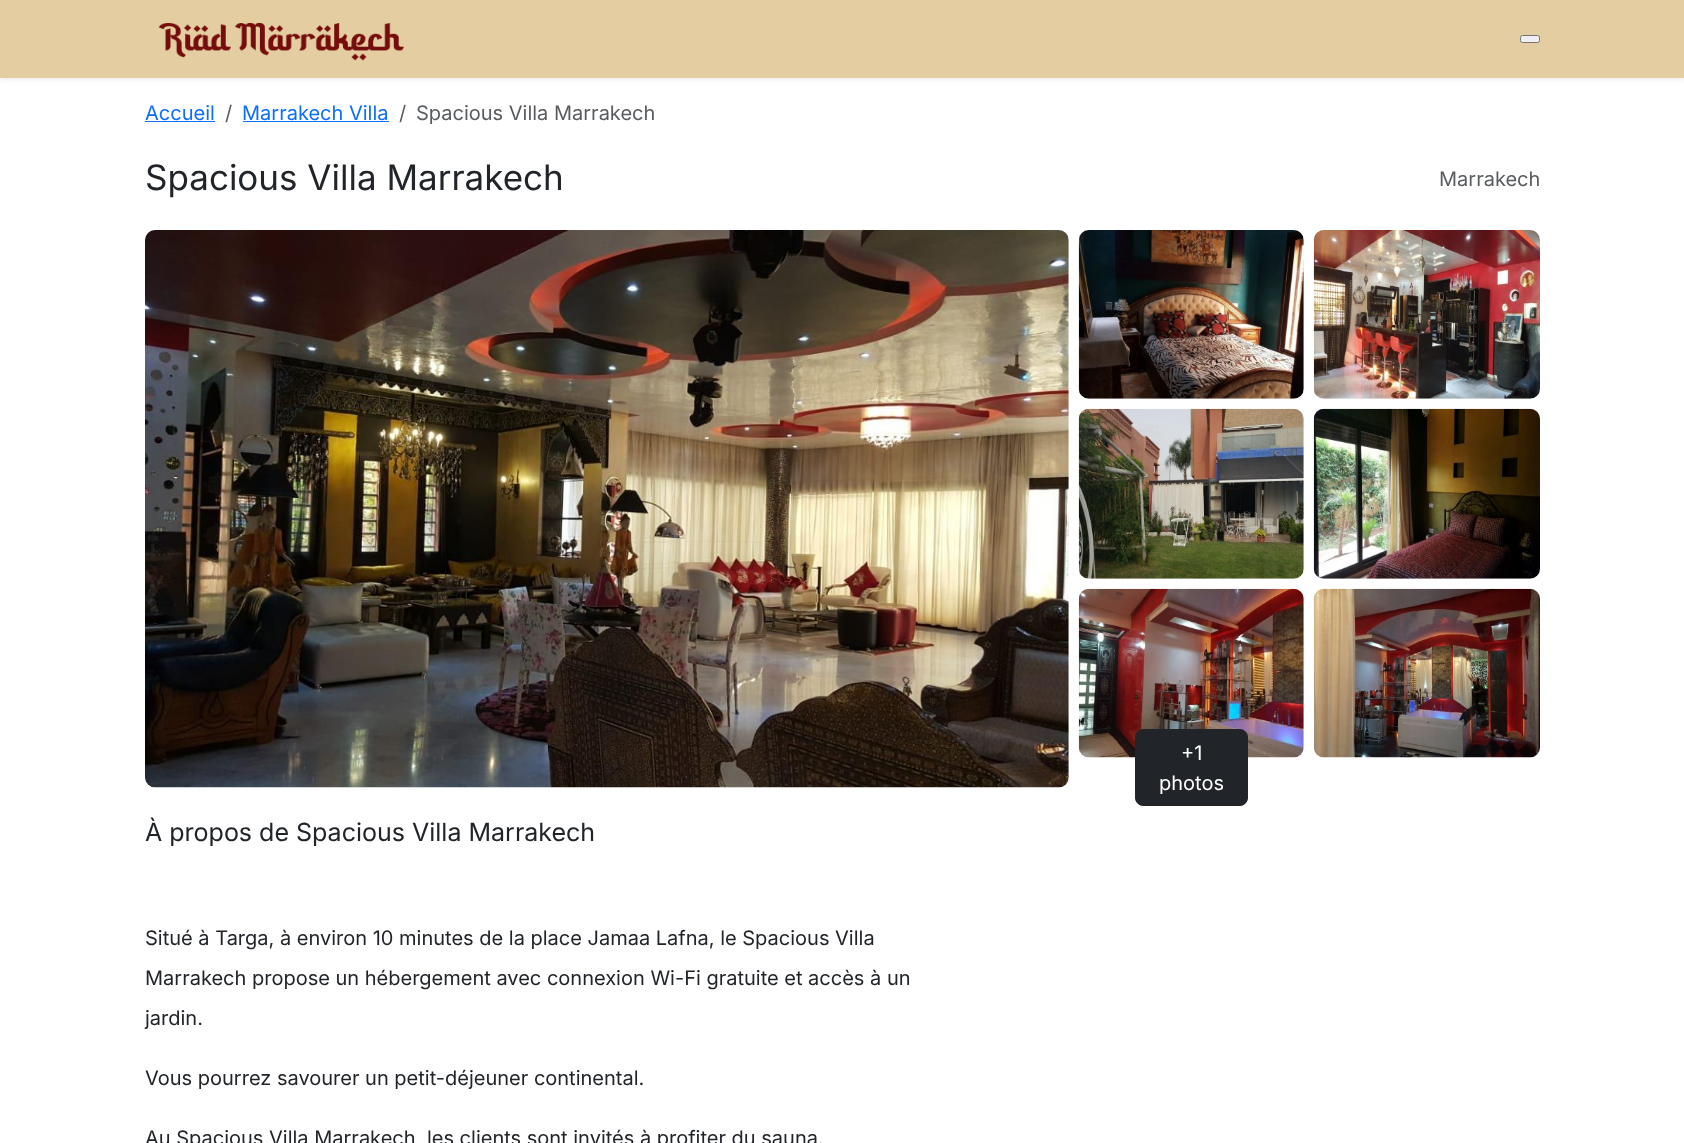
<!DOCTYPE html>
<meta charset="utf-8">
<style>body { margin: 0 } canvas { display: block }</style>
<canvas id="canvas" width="1684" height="1143"></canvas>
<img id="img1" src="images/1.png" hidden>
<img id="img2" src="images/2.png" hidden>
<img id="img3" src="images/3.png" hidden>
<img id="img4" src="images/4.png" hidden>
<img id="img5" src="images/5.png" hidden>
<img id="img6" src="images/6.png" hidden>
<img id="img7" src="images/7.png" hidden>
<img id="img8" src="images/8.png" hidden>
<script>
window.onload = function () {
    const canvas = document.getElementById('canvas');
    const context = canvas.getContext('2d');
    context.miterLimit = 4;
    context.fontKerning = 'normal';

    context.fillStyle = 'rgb(255, 255, 255)';
    context.fillRect(0, 0, 1684, 1143);
    context.fillStyle = 'rgba(0, 0, 0, 0.07)';
    context.filter = 'blur(2.5px)';
    context.beginPath();
    context.rect(0, 3, 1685, 77);
    context.fill();
    context.filter = 'none';
    context.fillStyle = 'rgb(228, 205, 161)';
    context.fillRect(0, 0, 1684, 78);
    context.drawImage(document.getElementById('img1'), 158, 23, 246, 38);
    context.fillStyle = 'rgb(239, 239, 239)';
    context.beginPath();
    context.roundRect(1520.5, 35.5, 19, 7, 2);
    context.fill();
    context.strokeStyle = 'rgb(118, 118, 118)';
    context.stroke();
    context.fillStyle = 'rgb(13, 110, 253)';
    context.fillRect(145, 121, 70, 1);
    context.fillRect(243, 121, 146, 1);
    context.drawImage(document.getElementById('img2'), 145, 230, 924, 558);
    context.drawImage(document.getElementById('img3'), 1078, 230, 226, 169);
    context.drawImage(document.getElementById('img4'), 1313, 230, 227, 169);
    context.drawImage(document.getElementById('img5'), 1078, 408, 226, 171);
    context.drawImage(document.getElementById('img6'), 1313, 408, 227, 171);
    context.drawImage(document.getElementById('img7'), 1078, 588, 226, 170);
    context.drawImage(document.getElementById('img8'), 1313, 588, 227, 170);
    context.fillStyle = 'rgb(33, 37, 41)';
    context.beginPath();
    context.roundRect(1135.5, 729.5, 112, 76, 7.5);
    context.fill();
    context.strokeStyle = 'rgb(33, 37, 41)';
    context.stroke();
    context.font = '20px Inter';
    context.fillStyle = 'rgb(13, 110, 253)';
    context.fillText('Accueil', 145, 120);
    context.fillStyle = 'rgb(89, 92, 95)';
    context.fillText('/', 225, 120);
    context.fillStyle = 'rgb(13, 110, 253)';
    context.fillText('Marrakech Villa', 242, 120);
    context.fillStyle = 'rgb(89, 92, 95)';
    context.fillText('/', 399, 120);
    context.fillText('Spacious Villa Marrakech', 416, 120);
    context.font = '35px Inter';
    context.fillStyle = 'rgb(33, 37, 41)';
    context.fillText('Spacious Villa Marrakech', 145, 190);
    context.font = '20px Inter';
    context.fillStyle = 'rgb(89, 92, 95)';
    context.fillText('Marrakech', 1439, 186);
    context.fillStyle = 'rgb(255, 255, 255)';
    context.fillText('+1', 1181, 760);
    context.fillText('photos', 1159, 790);
    context.font = '25px Inter';
    context.fillStyle = 'rgb(33, 37, 41)';
    context.fillText('À propos de Spacious Villa Marrakech', 145, 841);
    context.font = '20px Inter';
    context.fillText('Situé à Targa, à environ 10 minutes de la place Jamaa Lafna, le Spacious Villa', 145, 945);
    context.fillText('Marrakech propose un hébergement avec connexion Wi-Fi gratuite et accès à un', 145, 985);
    context.fillText('jardin.', 145, 1025);
    context.fillText('Vous pourrez savourer un petit-déjeuner continental.', 145, 1085);
    context.fillText('Au Spacious Villa Marrakech, les clients sont invités à profiter du sauna.', 145, 1145);
};
</script>
